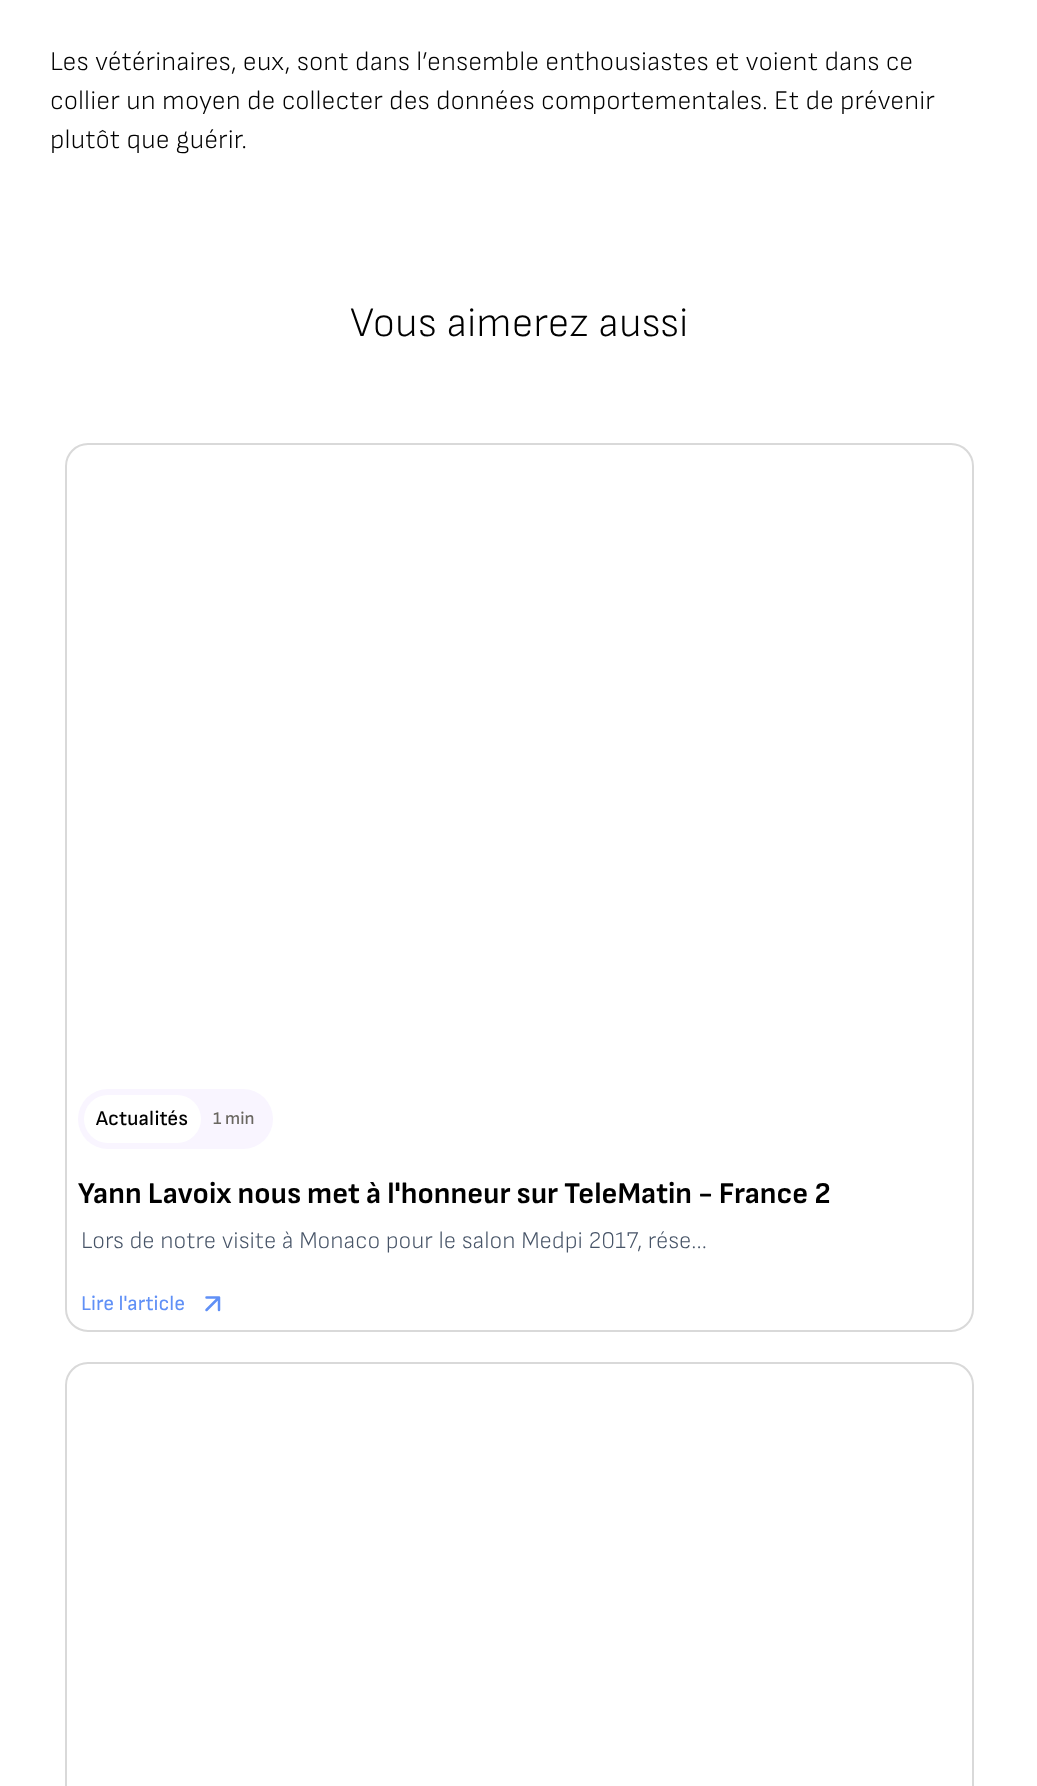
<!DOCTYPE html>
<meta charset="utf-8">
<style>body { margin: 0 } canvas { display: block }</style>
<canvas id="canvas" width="1037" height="1786"></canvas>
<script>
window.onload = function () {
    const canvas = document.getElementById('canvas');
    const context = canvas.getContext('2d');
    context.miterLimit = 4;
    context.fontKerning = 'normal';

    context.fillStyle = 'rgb(255, 255, 255)';
    context.fillRect(0, 0, 1037, 1786);
    context.beginPath();
    context.roundRect(66, 444, 907, 887, 22);
    context.strokeStyle = 'rgb(217, 217, 217)';
    context.lineWidth = 2;
    context.stroke();
    context.fillStyle = 'rgb(249, 245, 255)';
    context.beginPath();
    context.roundRect(78, 1089, 195, 60, 30);
    context.fill();
    context.fillStyle = 'rgb(255, 255, 255)';
    context.beginPath();
    context.roundRect(84, 1095, 117, 48, 24);
    context.fill();
    context.beginPath();
    context.moveTo(206.5, 1310);
    context.lineTo(219, 1297.5);
    context.moveTo(219, 1297.5);
    context.lineTo(206.5, 1297.5);
    context.moveTo(219, 1297.5);
    context.lineTo(219, 1310);
    context.strokeStyle = 'rgb(96, 144, 246)';
    context.lineWidth = 2.5;
    context.lineCap = 'round';
    context.lineJoin = 'round';
    context.stroke();
    context.beginPath();
    context.roundRect(66, 1363, 907, 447, 22);
    context.strokeStyle = 'rgb(217, 217, 217)';
    context.lineWidth = 2;
    context.lineJoin = 'miter';
    context.stroke();
    context.font = '300 27px Sofia Sans';
    context.fillStyle = 'rgb(0, 0, 0)';
    context.fillText('Les vétérinaires, eux, sont dans l’ensemble enthousiastes et voient dans ce', 50, 70);
    context.fillText('collier un moyen de collecter des données comportementales. Et de prévenir', 50, 109);
    context.fillText('plutôt que guérir.', 50, 148);
    context.font = '300 42px Sofia Sans';
    context.fillText('Vous aimerez aussi', 350, 336);
    context.font = '500 21px Sofia Sans';
    context.fillText('Actualités', 96, 1125);
    context.font = '500 18px Sofia Sans';
    context.fillStyle = 'rgb(106, 103, 97)';
    context.fillText('1', 213, 1124);
    context.fillText('min', 225, 1124);
    context.font = 'bold 30px Sofia Sans';
    context.fillStyle = 'rgb(0, 0, 0)';
    context.fillText('Yann Lavoix nous met à l\'honneur sur TeleMatin - France 2', 78, 1203);
    context.font = '300 24px Sofia Sans';
    context.fillStyle = 'rgb(71, 84, 103)';
    context.fillText('Lors de notre visite à Monaco pour le salon Medpi 2017, rése...', 81, 1248);
    context.font = '21px Sofia Sans';
    context.fillStyle = 'rgb(96, 144, 246)';
    context.fillText('Lire l\'article', 81, 1310);
};
</script>
